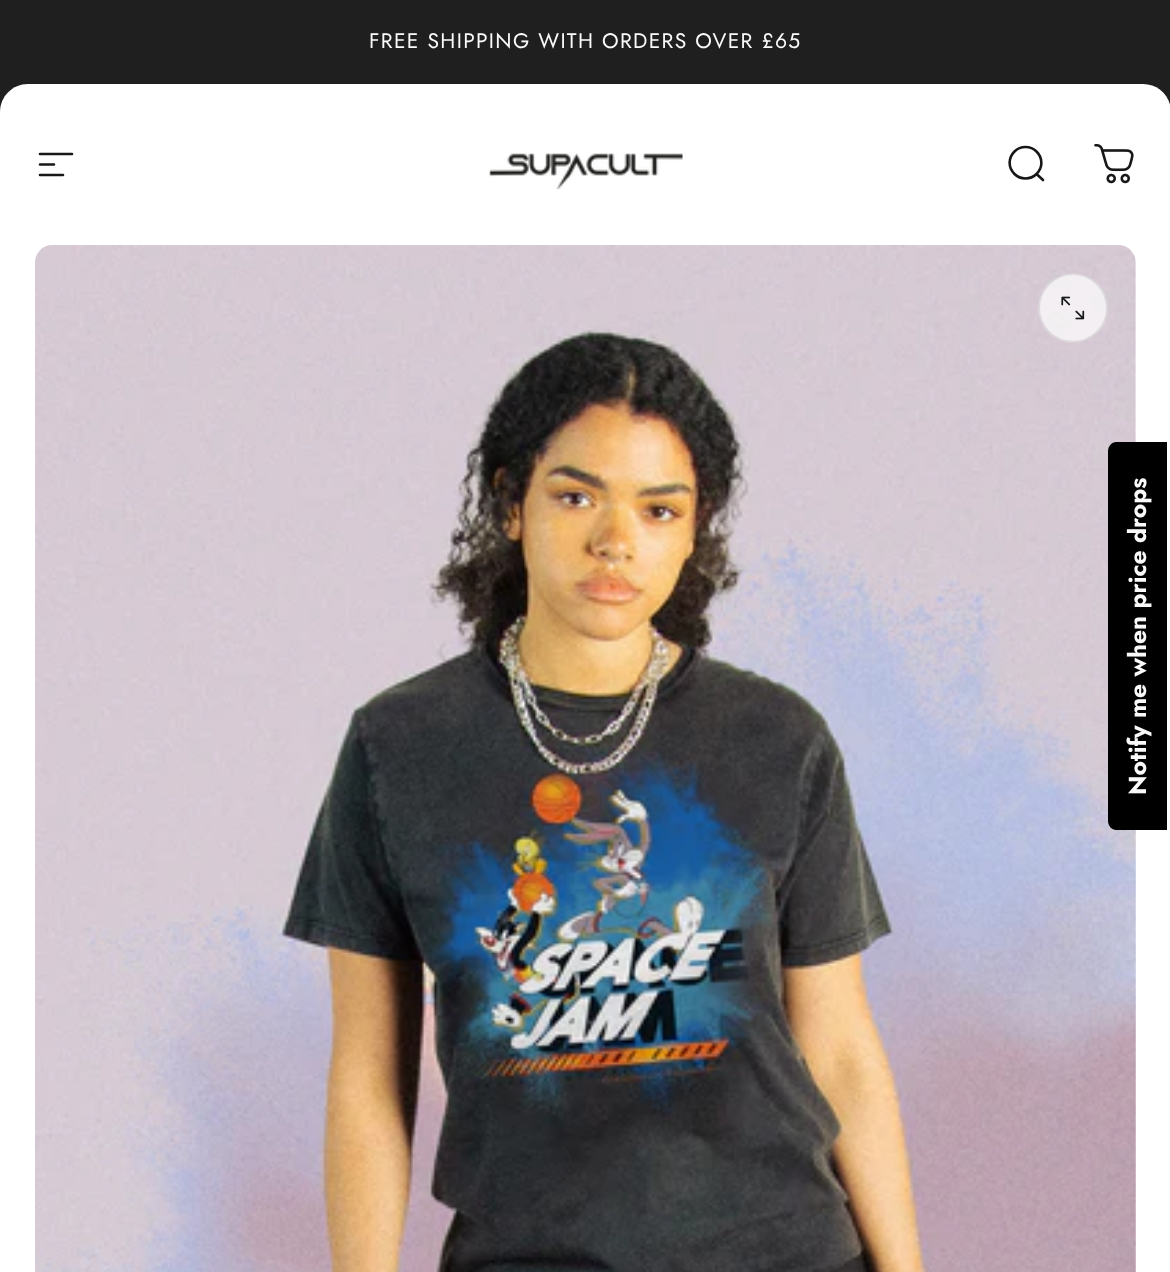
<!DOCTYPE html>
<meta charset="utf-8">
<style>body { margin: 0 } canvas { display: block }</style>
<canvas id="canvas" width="1170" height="1272"></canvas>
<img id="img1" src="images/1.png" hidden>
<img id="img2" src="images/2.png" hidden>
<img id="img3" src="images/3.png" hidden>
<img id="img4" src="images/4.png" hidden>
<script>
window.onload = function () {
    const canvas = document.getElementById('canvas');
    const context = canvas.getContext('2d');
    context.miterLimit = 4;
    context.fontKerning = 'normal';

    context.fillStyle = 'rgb(255, 255, 255)';
    context.fillRect(0, 0, 1170, 1272);
    context.fillStyle = 'rgb(31, 31, 31)';
    context.fillRect(0, 0, 1170, 28);
    context.beginPath();
    context.moveTo(28, 0);
    context.lineTo(1143, 0);
    context.bezierCurveTo(1158.5, 0, 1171, 12.5, 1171, 28);
    context.lineTo(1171, 112);
    context.lineTo(0, 112);
    context.lineTo(0, 28);
    context.bezierCurveTo(0, 12.5, 12.5, 0, 28, 0);
    context.closePath();
    context.fill();
    context.fillStyle = 'rgb(255, 255, 255)';
    context.beginPath();
    context.moveTo(28, 84);
    context.lineTo(1143, 84);
    context.bezierCurveTo(1158.5, 84, 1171, 96.5, 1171, 112);
    context.lineTo(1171, 245);
    context.lineTo(0, 245);
    context.lineTo(0, 112);
    context.bezierCurveTo(0, 96.5, 12.5, 84, 28, 84);
    context.closePath();
    context.fill();
    context.beginPath();
    context.moveTo(40, 154);
    context.lineTo(72, 154);
    context.moveTo(40, 164.5);
    context.lineTo(54, 164.5);
    context.moveTo(40, 175);
    context.lineTo(63, 175);
    context.strokeStyle = 'rgb(23, 23, 23)';
    context.lineWidth = 2.6;
    context.lineCap = 'round';
    context.stroke();
    context.drawImage(document.getElementById('img1'), 489, 153, 194, 36);
    context.beginPath();
    context.moveTo(1043, 180);
    context.lineTo(1036.5, 174);
    context.moveTo(1036.5, 174);
    context.bezierCurveTo(1043, 167.5, 1043, 158, 1036.5, 151.5);
    context.bezierCurveTo(1030.5, 145.5, 1020.5, 145.5, 1014.5, 151.5);
    context.bezierCurveTo(1008, 158, 1008, 167.5, 1014.5, 174);
    context.bezierCurveTo(1020.5, 180, 1030.5, 180, 1036.5, 174);
    context.closePath();
    context.stroke();
    context.drawImage(document.getElementById('img2'), 1094, 144, 40, 40);
    context.fillStyle = 'rgb(250, 250, 250)';
    context.beginPath();
    context.roundRect(35, 245, 1101, 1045, 18);
    context.fill();
    context.drawImage(document.getElementById('img3'), 35, 245, 1101, 1027);
    context.fillStyle = 'rgba(255, 255, 255, 0.7)';
    context.beginPath();
    context.arc(1073, 308, 35, 0, 2 * Math.PI);
    context.fill();
    context.beginPath();
    context.arc(1073, 308, 34, 0, 2 * Math.PI);
    context.strokeStyle = 'rgba(23, 23, 23, 0.1)';
    context.lineWidth = 2;
    context.stroke();
    context.drawImage(document.getElementById('img4'), 1061, 296, 24, 24);
    context.fillStyle = 'rgb(0, 0, 0)';
    context.beginPath();
    context.moveTo(1108, 821);
    context.lineTo(1108, 451);
    context.bezierCurveTo(1108, 446, 1112, 442, 1116, 442);
    context.lineTo(1167, 442);
    context.lineTo(1167, 830);
    context.lineTo(1116, 830);
    context.bezierCurveTo(1112, 830, 1108, 826, 1108, 821);
    context.closePath();
    context.fill();
    context.letterSpacing = '1.35px';
    context.font = '21px Jost';
    context.fillStyle = 'rgb(250, 250, 250)';
    context.fillText('FREE SHIPPING WITH ORDERS OVER £65', 369, 48);
    context.letterSpacing = '0px';
    context.font = 'bold 24.5px Jost';
    context.save();
    context.translate(1146, 795);
    context.rotate(-90 * Math.PI / 180);
    context.fillText('Notify me when price drops', 0, 0);
    context.restore();
};
</script>
